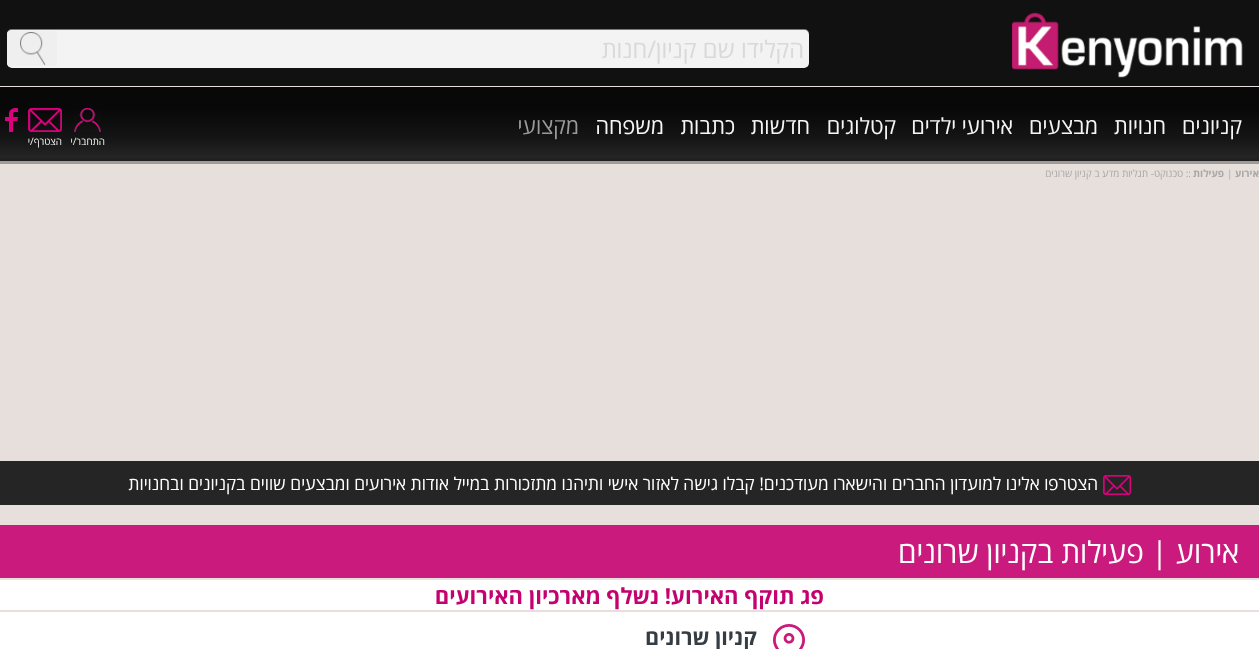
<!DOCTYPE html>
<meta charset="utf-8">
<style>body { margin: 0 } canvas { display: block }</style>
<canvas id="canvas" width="1259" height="649"></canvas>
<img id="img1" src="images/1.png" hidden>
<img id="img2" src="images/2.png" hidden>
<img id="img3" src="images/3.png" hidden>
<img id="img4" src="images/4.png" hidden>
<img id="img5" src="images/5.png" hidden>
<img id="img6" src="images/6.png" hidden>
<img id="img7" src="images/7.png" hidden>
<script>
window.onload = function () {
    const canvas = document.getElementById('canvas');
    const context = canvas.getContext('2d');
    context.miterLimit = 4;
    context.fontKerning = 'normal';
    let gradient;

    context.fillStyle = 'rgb(230, 223, 219)';
    context.fillRect(0, 0, 1259, 649);
    context.fillStyle = 'rgb(17, 17, 17)';
    context.fillRect(0, 0, 1259, 86);
    context.drawImage(document.getElementById('img1'), 1012, 12, 231, 66);
    context.fillStyle = 'rgb(243, 243, 243)';
    context.beginPath();
    context.roundRect(7, 29, 802, 39, 5);
    context.fill();
    context.fillStyle = 'rgba(0, 0, 0, 0.5)';
    context.beginPath();
    context.moveTo(12, 30);
    context.lineTo(804, 30);
    context.bezierCurveTo(807, 30, 809, 32, 809, 35);
    context.lineTo(809, 34);
    context.bezierCurveTo(809, 31, 807, 29, 804, 29);
    context.lineTo(12, 29);
    context.bezierCurveTo(9, 29, 7, 31, 7, 34);
    context.lineTo(7, 35);
    context.bezierCurveTo(7, 32, 9, 30, 12, 30);
    context.closePath();
    context.fill();
    context.fillStyle = 'rgb(239, 239, 239)';
    context.beginPath();
    context.roundRect(7, 31, 50, 35, 3);
    context.fill();
    context.drawImage(document.getElementById('img2'), 20, 32, 26, 34);
    context.fillStyle = 'rgba(0, 0, 0, 0.3)';
    context.filter = 'blur(0.5px)';
    context.beginPath();
    context.rect(0, 90, 1259, 74);
    context.fill();
    context.filter = 'none';
    gradient = context.createLinearGradient(630, 87, 630, 161);
    gradient.addColorStop(0.3, 'rgb(8, 8, 8)');
    gradient.addColorStop(0.7, 'rgb(21, 21, 21)');
    gradient.addColorStop(0.95, 'rgb(37, 37, 37)');
    gradient.addColorStop(1, 'rgb(28, 28, 28)');
    context.fillStyle = gradient;
    context.fillRect(0, 87, 1259, 74);
    context.drawImage(document.getElementById('img3'), 5, 108, 13, 24);
    context.drawImage(document.getElementById('img4'), 74, 108, 27, 24);
    context.drawImage(document.getElementById('img5'), 28, 108, 34, 24);
    context.fillStyle = 'rgb(37, 37, 37)';
    context.fillRect(0, 461, 1259, 44);
    context.drawImage(document.getElementById('img6'), 1103, 475, 28, 20);
    context.fillStyle = 'rgb(202, 26, 125)';
    context.fillRect(0, 525, 1259, 53);
    context.fillStyle = 'rgb(255, 255, 255)';
    context.fillRect(0, 580, 1259, 30);
    context.fillRect(0, 612, 1259, 37);
    context.drawImage(document.getElementById('img7'), 773, 624, 32, 25);
    context.direction = 'rtl';
    context.font = '24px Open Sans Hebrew';
    context.fillStyle = 'rgb(217, 217, 217)';
    context.fillText('הקלידו שם קניון/חנות', 804, 58);
    context.font = '22px Open Sans Hebrew';
    context.fillStyle = 'rgb(245, 245, 245)';
    context.fillText('קניונים', 1242, 134);
    context.fillText('חנויות', 1166, 134);
    context.fillText('מבצעים', 1098, 134);
    context.fillText('אירועי ילדים', 1013, 134);
    context.fillText('קטלוגים', 896, 134);
    context.fillText('חדשות', 810, 134);
    context.fillText('כתבות', 735, 134);
    context.fillText('משפחה', 664, 134);
    context.fillStyle = 'rgb(154, 154, 154)';
    context.fillText('מקצועי', 579, 134);
    context.font = '10px Open Sans Hebrew';
    context.fillStyle = 'rgb(245, 245, 245)';
    context.fillText('התחבר/י', 105, 145);
    context.fillText('הצטרף/י', 62, 145);
    context.font = 'bold 10px Open Sans Hebrew';
    context.fillStyle = 'rgb(168, 168, 168)';
    context.fillText('אירוע', 1259, 177);
    context.direction = 'ltr';
    context.font = '10px Open Sans Hebrew';
    context.fillText('|', 1227, 177);
    context.direction = 'rtl';
    context.font = 'bold 10px Open Sans Hebrew';
    context.fillText('פעילות', 1224, 177);
    context.font = '10px Open Sans Hebrew';
    context.fillText(':: טכנוקט- תגליות מדע ב קניון שרונים', 1191, 177);
    context.font = '17.6px Open Sans Hebrew';
    context.fillStyle = 'rgb(255, 255, 255)';
    context.fillText('הצטרפו אלינו למועדון החברים והישארו מעודכנים! קבלו גישה לאזור אישי ותיהנו מתזכורות במייל אודות אירועים ומבצעים שווים בקניונים ובחנויות', 1098, 490);
    context.font = '30px Open Sans Hebrew';
    context.fillText('אירוע | פעילות בקניון שרונים', 1239, 563);
    context.font = 'bold 22px Open Sans Hebrew';
    context.fillStyle = 'rgb(196, 1, 110)';
    context.fillText('פג תוקף האירוע! נשלף מארכיון האירועים', 824, 604);
    context.font = 'bold 21.5px Open Sans Hebrew';
    context.fillStyle = 'rgb(53, 60, 66)';
    context.fillText('קניון שרונים', 757, 645);
};
</script>
